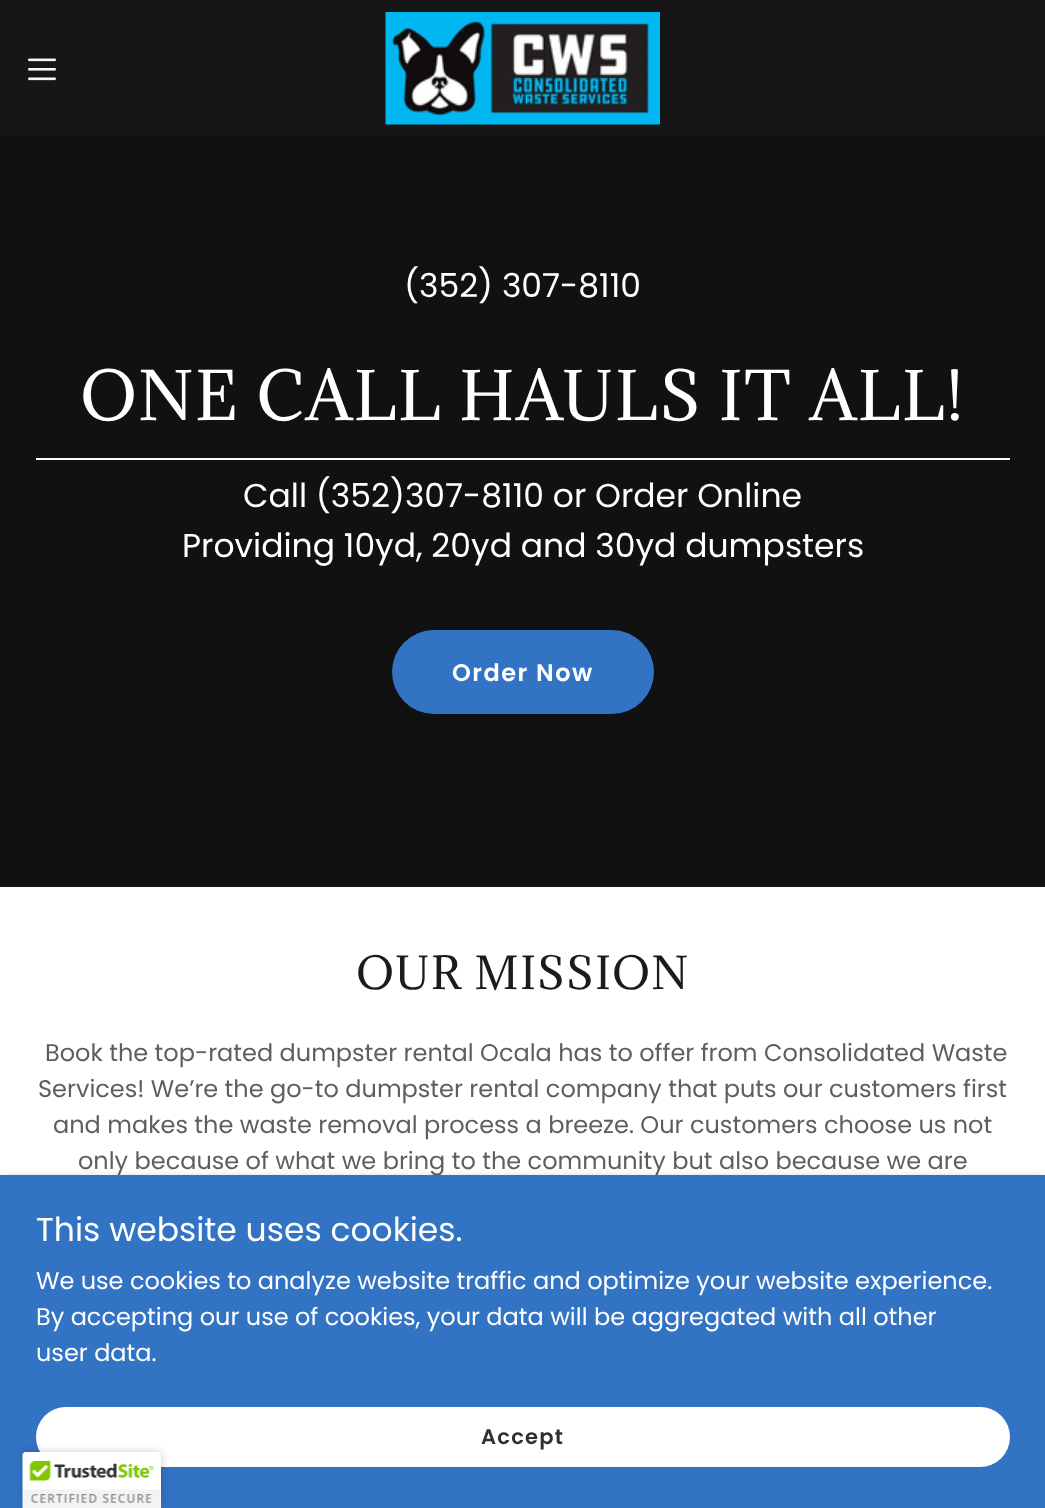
<!DOCTYPE html>
<meta charset="utf-8">
<style>body { margin: 0 } canvas { display: block }</style>
<canvas id="canvas" width="1045" height="1508"></canvas>
<img id="img1" src="images/1.png" hidden>
<img id="img2" src="images/2.png" hidden>
<img id="img3" src="images/3.png" hidden>
<script>
window.onload = function () {
    const canvas = document.getElementById('canvas');
    const context = canvas.getContext('2d');
    context.miterLimit = 4;
    context.fontKerning = 'normal';

    context.fillStyle = 'rgb(22, 22, 22)';
    context.fillRect(0, 0, 1045, 1508);
    context.drawImage(document.getElementById('img1'), 28, 58, 28, 23);
    context.drawImage(document.getElementById('img2'), 385, 12, 275, 113);
    context.fillStyle = 'rgb(17, 17, 17)';
    context.fillRect(0, 137, 1045, 750);
    context.fillStyle = 'rgb(255, 255, 255)';
    context.fillRect(36, 458, 974, 2);
    context.fillStyle = 'rgb(51, 115, 196)';
    context.beginPath();
    context.roundRect(392, 630, 262, 84, 42);
    context.fill();
    context.fillStyle = 'rgb(255, 255, 255)';
    context.fillRect(0, 887, 1045, 288);
    context.fillStyle = 'rgba(0, 0, 0, 0.3)';
    context.filter = 'blur(4.5px)';
    context.beginPath();
    context.rect(0, 1178, 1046, 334);
    context.fill();
    context.filter = 'none';
    context.font = '33px Poppins';
    context.fillStyle = 'rgb(255, 255, 255)';
    context.fillText('(352) 307-8110', 404, 297);
    context.letterSpacing = '1.5px';
    context.font = '63px Adamina';
    context.fillText('ONE CALL HAULS IT ALL!', 80, 420);
    context.letterSpacing = '0px';
    context.font = '33px Poppins';
    context.fillText('Call (352)307-8110 or Order Online', 243, 507);
    context.fillText('Providing 10yd, 20yd and 30yd dumpsters', 182, 557);
    context.letterSpacing = '1.5px';
    context.font = '600 24px Poppins';
    context.fillText('Order Now', 452, 681);
    context.font = '42px Adamina';
    context.fillStyle = 'rgb(27, 27, 27)';
    context.fillText('OUR MISSION', 356, 989);
    context.letterSpacing = '0px';
    context.font = '24px Poppins';
    context.fillStyle = 'rgb(94, 94, 94)';
    context.fillText('Book the top-rated dumpster rental Ocala has to offer from Consolidated Waste', 45, 1061);
    context.fillText('Services! We’re the go-to dumpster rental company that puts our customers first', 38, 1097);
    context.fillText('and makes the waste removal process a breeze. Our customers choose us not', 53, 1133);
    context.fillText('only because of what we bring to the community but also because we are', 78, 1169);
    context.fillStyle = 'rgb(51, 115, 196)';
    context.fillRect(0, 1175, 1045, 333);
    context.font = '33px Poppins';
    context.fillStyle = 'rgb(255, 255, 255)';
    context.fillText('This website uses cookies.', 36, 1241);
    context.font = '24px Poppins';
    context.fillText('We use cookies to analyze website traffic and optimize your website experience.', 36, 1289);
    context.fillText('By accepting our use of cookies, your data will be aggregated with all other', 36, 1325);
    context.fillText('user data.', 36, 1361);
    context.beginPath();
    context.roundRect(36, 1407, 974, 60, 30);
    context.fill();
    context.letterSpacing = '1.25px';
    context.font = '600 21px Poppins';
    context.fillStyle = 'rgb(48, 48, 48)';
    context.fillText('Accept', 481, 1444);
    context.fillStyle = 'rgba(0, 0, 0, 0.2)';
    context.filter = 'blur(4px)';
    context.beginPath();
    context.roundRect(23, 1452, 138, 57, 3);
    context.fill();
    context.filter = 'none';
    context.fillStyle = 'rgb(255, 255, 255)';
    context.beginPath();
    context.moveTo(26, 1452);
    context.lineTo(158, 1452);
    context.bezierCurveTo(159.5, 1452, 161, 1453.5, 161, 1455);
    context.lineTo(161, 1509);
    context.lineTo(23, 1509);
    context.lineTo(23, 1455);
    context.bezierCurveTo(23, 1453.5, 24.5, 1452, 26, 1452);
    context.closePath();
    context.fill();
    context.drawImage(document.getElementById('img3'), 22, 1452, 139, 56);
};
</script>
